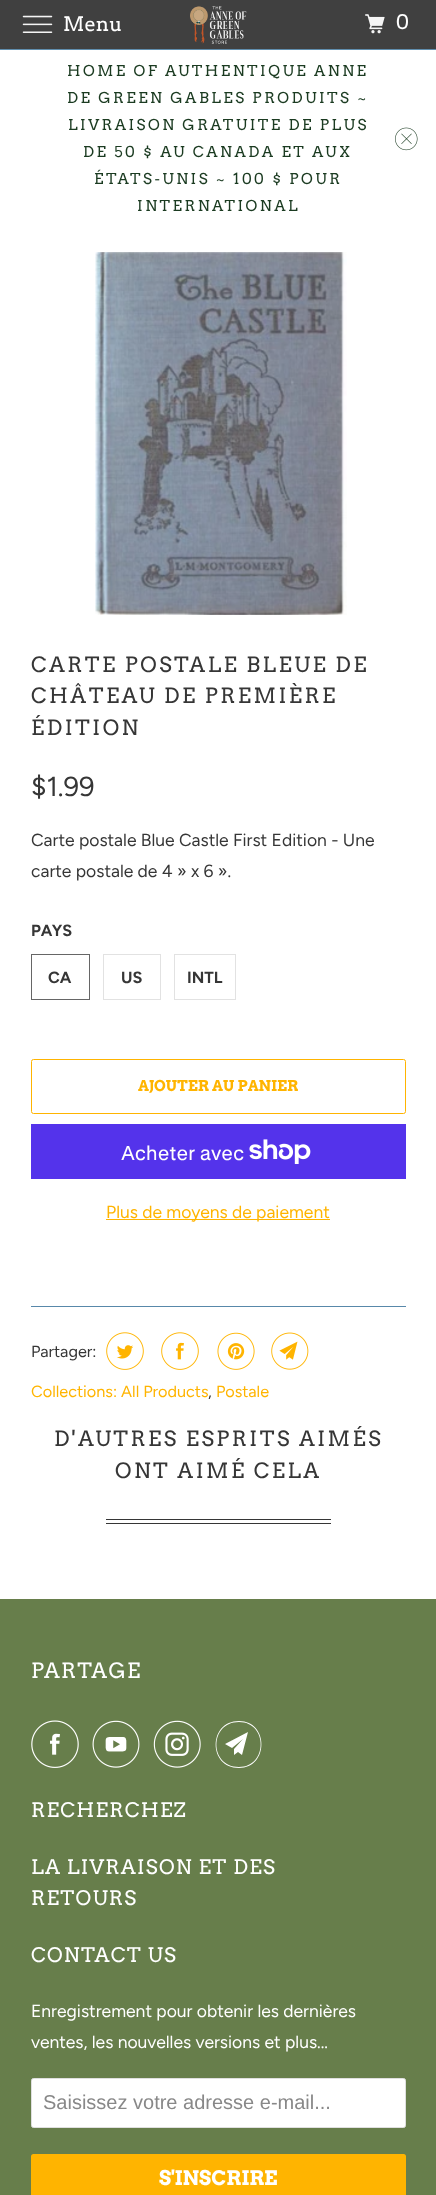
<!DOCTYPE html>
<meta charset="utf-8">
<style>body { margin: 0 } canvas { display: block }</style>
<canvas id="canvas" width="436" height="2195"></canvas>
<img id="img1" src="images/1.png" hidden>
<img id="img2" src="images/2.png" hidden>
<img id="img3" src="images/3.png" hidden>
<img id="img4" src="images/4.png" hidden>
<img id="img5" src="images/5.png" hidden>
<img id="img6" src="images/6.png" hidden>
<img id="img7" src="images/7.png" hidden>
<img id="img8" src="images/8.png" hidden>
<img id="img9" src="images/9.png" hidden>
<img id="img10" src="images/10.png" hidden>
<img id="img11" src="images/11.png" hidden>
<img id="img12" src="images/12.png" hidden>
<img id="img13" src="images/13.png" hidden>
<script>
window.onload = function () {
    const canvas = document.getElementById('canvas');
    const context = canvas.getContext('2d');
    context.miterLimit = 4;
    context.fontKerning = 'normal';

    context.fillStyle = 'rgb(255, 255, 255)';
    context.fillRect(0, 0, 436, 2195);
    context.fillStyle = 'rgb(64, 64, 64)';
    context.fillRect(0, 0, 436, 49);
    context.fillStyle = 'rgb(96, 142, 174)';
    context.fillRect(0, 49, 436, 1);
    context.drawImage(document.getElementById('img1'), 22, 15, 31, 18);
    context.drawImage(document.getElementById('img2'), 190, 6, 57, 38);
    context.drawImage(document.getElementById('img3'), 365, 14, 20, 20);
    context.drawImage(document.getElementById('img4'), 395, 127, 23, 24);
    context.drawImage(document.getElementById('img5'), 95, 252, 252, 363);
    context.strokeStyle = 'rgb(102, 102, 102)';
    context.strokeRect(31.5, 954.5, 58, 45);
    context.strokeStyle = 'rgb(226, 226, 226)';
    context.strokeRect(103.5, 954.5, 57, 45);
    context.strokeRect(174.5, 954.5, 61, 45);
    context.beginPath();
    context.roundRect(31.5, 1059.5, 374, 54, 2);
    context.strokeStyle = 'rgb(255, 180, 0)';
    context.stroke();
    context.fillStyle = 'rgb(84, 51, 235)';
    context.fillRect(31, 1124, 375, 55);
    context.drawImage(document.getElementById('img6'), 249, 1139, 62, 25);
    context.fillStyle = 'rgb(255, 180, 0)';
    context.fillRect(106, 1219, 224, 1);
    context.fillStyle = 'rgb(88, 136, 170)';
    context.fillRect(31, 1306, 375, 1);
    context.drawImage(document.getElementById('img7'), 106, 1332, 38, 38);
    context.drawImage(document.getElementById('img8'), 161, 1332, 38, 38);
    context.drawImage(document.getElementById('img9'), 217, 1332, 38, 38);
    context.drawImage(document.getElementById('img10'), 271, 1332, 38, 38);
    context.fillStyle = 'rgb(54, 54, 54)';
    context.fillRect(106, 1519, 225, 1);
    context.fillRect(106, 1523, 225, 1);
    context.fillStyle = 'rgb(103, 126, 75)';
    context.fillRect(0, 1599, 436, 596);
    context.drawImage(document.getElementById('img11'), 31, 1720, 48, 48);
    context.drawImage(document.getElementById('img12'), 92, 1720, 48, 48);
    context.drawImage(document.getElementById('img13'), 153, 1720, 48, 48);
    context.fillStyle = 'rgb(255, 255, 255)';
    context.beginPath();
    context.moveTo(242, 1755);
    context.lineTo(238, 1752);
    context.lineTo(234, 1755);
    context.lineTo(234, 1749);
    context.lineTo(243, 1739);
    context.lineTo(232, 1748);
    context.lineTo(225, 1744);
    context.lineTo(248, 1732);
    context.closePath();
    context.moveTo(239, 1722);
    context.bezierCurveTo(209, 1722, 209, 1767, 239, 1767);
    context.bezierCurveTo(268, 1767, 268, 1722, 239, 1722);
    context.closePath();
    context.moveTo(239, 1768);
    context.bezierCurveTo(208, 1768, 208, 1721, 239, 1721);
    context.bezierCurveTo(269, 1721, 269, 1768, 239, 1768);
    context.closePath();
    context.fill();
    context.beginPath();
    context.roundRect(31.5, 2078.5, 374, 49, 2);
    context.fill();
    context.strokeStyle = 'rgb(223, 223, 223)';
    context.stroke();
    context.fillStyle = 'rgb(255, 180, 0)';
    context.beginPath();
    context.roundRect(31, 2154, 375, 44, 2.5);
    context.fill();
    context.font = '20px Arvo';
    context.fillStyle = 'rgb(255, 255, 255)';
    context.fillText('Menu', 63, 31);
    context.fillText('0', 396, 29);
    context.letterSpacing = '2.5px';
    context.font = '15px Arvo';
    context.fillStyle = 'rgb(27, 59, 33)';
    context.fillText('HOME OF AUTHENTIQUE ANNE', 67, 76);
    context.fillText('DE GREEN GABLES PRODUITS ~', 67, 103);
    context.fillText('LIVRAISON GRATUITE DE PLUS', 68, 130);
    context.fillText('DE 50 $ AU CANADA ET AUX', 83, 157);
    context.fillText('ÉTATS-UNIS ~ 100 $ POUR', 94, 184);
    context.fillText('INTERNATIONAL', 137, 211);
    context.font = '21px Arvo';
    context.fillStyle = 'rgb(54, 54, 54)';
    context.fillText('CARTE POSTALE BLEUE DE', 31, 672);
    context.fillText('CHÂTEAU DE PREMIÈRE', 31, 703);
    context.fillText('ÉDITION', 31, 735);
    context.letterSpacing = '0px';
    context.font = '27.5px Figtree';
    context.fillText('$1.99', 31, 796);
    context.font = '17.5px Figtree';
    context.fillText('Carte postale Blue Castle First Edition - Une', 31, 846);
    context.fillText('carte postale de 4 » x 6 ».', 31, 877);
    context.font = 'bold 16.25px Figtree';
    context.fillText('PAYS', 31, 936);
    context.fillText('CA', 48, 983);
    context.fillText('US', 121, 983);
    context.fillText('INTL', 187, 983);
    context.font = 'bold 15px Arvo';
    context.fillStyle = 'rgb(255, 180, 0)';
    context.fillText('AJOUTER AU PANIER', 138, 1091);
    context.font = '20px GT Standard';
    context.fillStyle = 'rgb(255, 255, 255)';
    context.fillText('Acheter avec', 121, 1160);
    context.font = '17.5px Figtree';
    context.fillStyle = 'rgb(255, 180, 0)';
    context.fillText('Plus de moyens de paiement', 106, 1218);
    context.font = '16.25px Figtree';
    context.fillStyle = 'rgb(54, 54, 54)';
    context.fillText('Partager:', 31, 1357);
    context.fillStyle = 'rgb(255, 180, 0)';
    context.fillText('Collections: All Products', 31, 1397);
    context.fillStyle = 'rgb(54, 54, 54)';
    context.fillText(',', 208, 1397);
    context.fillStyle = 'rgb(255, 180, 0)';
    context.fillText('Postale', 216, 1397);
    context.letterSpacing = '2.5px';
    context.font = '21px Arvo';
    context.fillStyle = 'rgb(54, 54, 54)';
    context.fillText('D\'AUTRES ESPRITS AIMÉS', 54, 1446);
    context.fillText('ONT AIMÉ CELA', 115, 1478);
    context.letterSpacing = '1.25px';
    context.fillStyle = 'rgb(255, 255, 255)';
    context.fillText('PARTAGE', 31, 1678);
    context.font = '20px Arvo';
    context.fillText('RECHERCHEZ', 31, 1817);
    context.fillText('LA LIVRAISON ET DES', 31, 1874);
    context.fillText('RETOURS', 31, 1905);
    context.fillText('CONTACT US', 31, 1962);
    context.letterSpacing = '0px';
    context.font = '17.5px Figtree';
    context.fillText('Enregistrement pour obtenir les dernières', 31, 2017);
    context.fillText('ventes, les nouvelles versions et plus...', 31, 2048);
    context.font = '20px Liberation Sans';
    context.fillStyle = 'rgb(136, 136, 136)';
    context.fillText('Saisissez votre adresse e-mail...', 43, 2109);
    context.font = 'bold 20px Arvo';
    context.fillStyle = 'rgb(255, 255, 255)';
    context.fillText('S\'INSCRIRE', 159, 2185);
};
</script>
